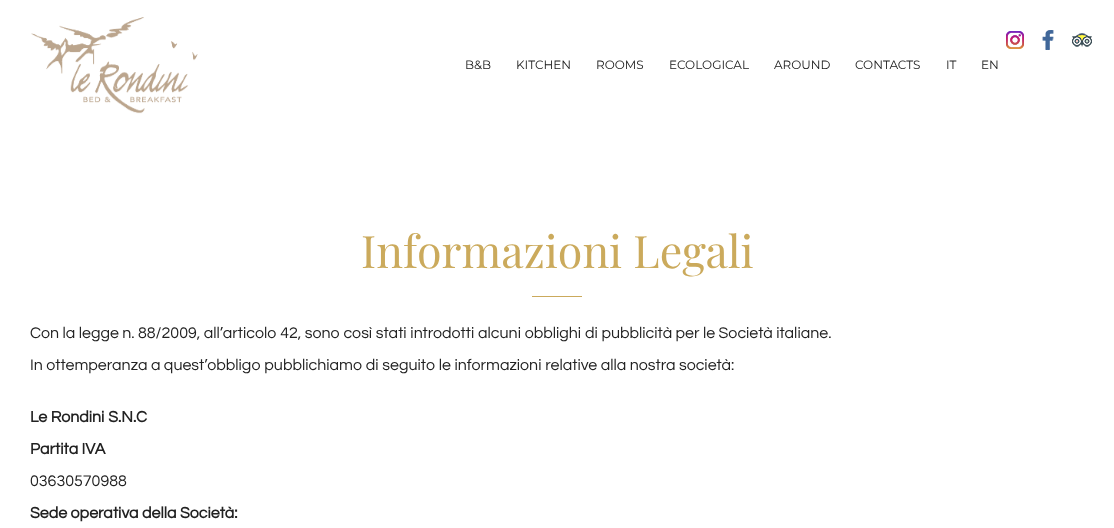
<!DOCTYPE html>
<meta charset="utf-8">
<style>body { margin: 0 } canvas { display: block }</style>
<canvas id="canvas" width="1114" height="528"></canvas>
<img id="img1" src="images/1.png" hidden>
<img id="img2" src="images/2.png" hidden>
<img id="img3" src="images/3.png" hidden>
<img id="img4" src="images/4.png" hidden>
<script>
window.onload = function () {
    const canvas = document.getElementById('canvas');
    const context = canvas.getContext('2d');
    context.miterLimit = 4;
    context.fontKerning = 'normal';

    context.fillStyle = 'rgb(255, 255, 255)';
    context.fillRect(0, 0, 1114, 528);
    context.drawImage(document.getElementById('img1'), 1006, 31, 18, 18);
    context.drawImage(document.getElementById('img2'), 1042, 30, 12, 20);
    context.drawImage(document.getElementById('img3'), 1072, 33, 20, 14);
    context.drawImage(document.getElementById('img4'), 31, 17, 167, 97);
    context.fillStyle = 'rgb(203, 170, 92)';
    context.fillRect(532, 296, 50, 1);
    context.font = '100 12px Montserrat';
    context.fillStyle = 'rgb(23, 23, 23)';
    context.fillText('B&B', 465, 69);
    context.fillText('KITCHEN', 516, 69);
    context.fillText('ROOMS', 596, 69);
    context.fillText('ECOLOGICAL', 669, 69);
    context.fillText('AROUND', 774, 69);
    context.fillText('CONTACTS', 855, 69);
    context.fillText('IT', 946, 69);
    context.fillText('EN', 981, 69);
    context.font = '44.75px Playfair Display';
    context.fillStyle = 'rgb(203, 170, 92)';
    context.fillText('Informazioni Legali', 361, 268);
    context.font = '16px Questrial';
    context.fillStyle = 'rgb(34, 34, 34)';
    context.fillText('Con la legge n. 88/2009, all’articolo 42, sono così stati introdotti alcuni obblighi di pubblicità per le Società italiane.', 30, 338);
    context.fillText('In ottemperanza a quest’obbligo pubblichiamo di seguito le informazioni relative alla nostra società:', 30, 370);
    context.font = 'bold 16px Questrial';
    context.fillText('Le Rondini S.N.C', 30, 422);
    context.fillText('Partita IVA', 30, 454);
    context.font = '16px Questrial';
    context.fillText('03630570988', 30, 486);
    context.font = 'bold 16px Questrial';
    context.fillText('Sede operativa della Società:', 30, 518);
};
</script>
